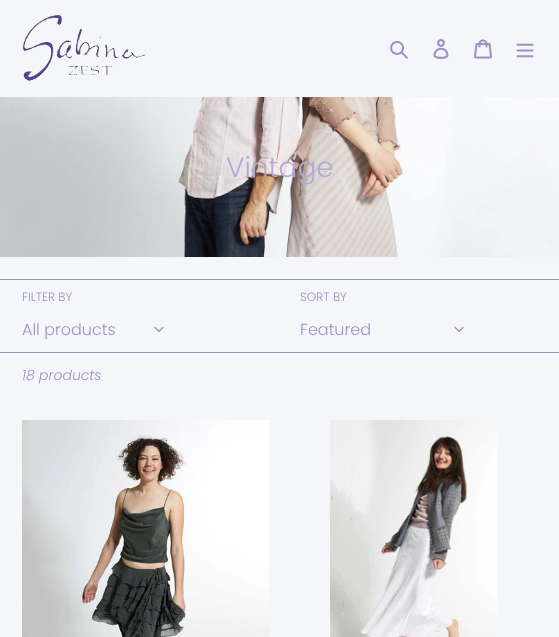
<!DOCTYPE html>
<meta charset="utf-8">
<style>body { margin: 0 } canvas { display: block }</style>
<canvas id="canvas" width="559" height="637"></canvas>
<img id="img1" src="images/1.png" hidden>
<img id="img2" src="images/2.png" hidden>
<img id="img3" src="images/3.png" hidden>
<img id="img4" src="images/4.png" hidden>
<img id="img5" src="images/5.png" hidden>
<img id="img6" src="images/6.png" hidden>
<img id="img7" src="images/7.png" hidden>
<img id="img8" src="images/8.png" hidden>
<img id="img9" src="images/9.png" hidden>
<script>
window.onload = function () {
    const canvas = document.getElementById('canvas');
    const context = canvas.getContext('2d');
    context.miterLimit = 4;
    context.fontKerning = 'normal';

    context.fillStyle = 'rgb(245, 246, 250)';
    context.fillRect(0, 0, 559, 637);
    context.drawImage(document.getElementById('img1'), 22, 15, 125, 66);
    context.drawImage(document.getElementById('img2'), 390, 41, 18, 18);
    context.drawImage(document.getElementById('img3'), 433, 39, 16, 20);
    context.drawImage(document.getElementById('img4'), 474, 39, 18, 20);
    context.drawImage(document.getElementById('img5'), 516, 43, 18, 15);
    context.drawImage(document.getElementById('img6'), 0, 97, 559, 160);
    context.fillStyle = 'rgb(154, 145, 197)';
    context.fillRect(0, 279, 559, 1);
    context.drawImage(document.getElementById('img7'), 154, 326, 10, 6);
    context.drawImage(document.getElementById('img7'), 454, 326, 10, 6);
    context.fillRect(0, 352, 559, 1);
    context.drawImage(document.getElementById('img8'), 22, 420, 247, 217);
    context.drawImage(document.getElementById('img9'), 330, 420, 167, 217);
    context.font = '300 28px Poppins';
    context.fillStyle = 'rgb(178, 171, 210)';
    context.fillText('Vintage', 226, 177);
    context.font = '300 12px Poppins';
    context.fillStyle = 'rgb(154, 145, 197)';
    context.fillText('FILTER BY', 22, 301);
    context.font = '300 16px Poppins';
    context.fillText('All products', 22, 335);
    context.font = '300 12px Poppins';
    context.fillText('SORT BY', 300, 301);
    context.font = '300 16px Poppins';
    context.fillText('Featured', 300, 335);
    context.font = 'italic 300 14px Poppins';
    context.fillText('18 products', 22, 380);
};
</script>
